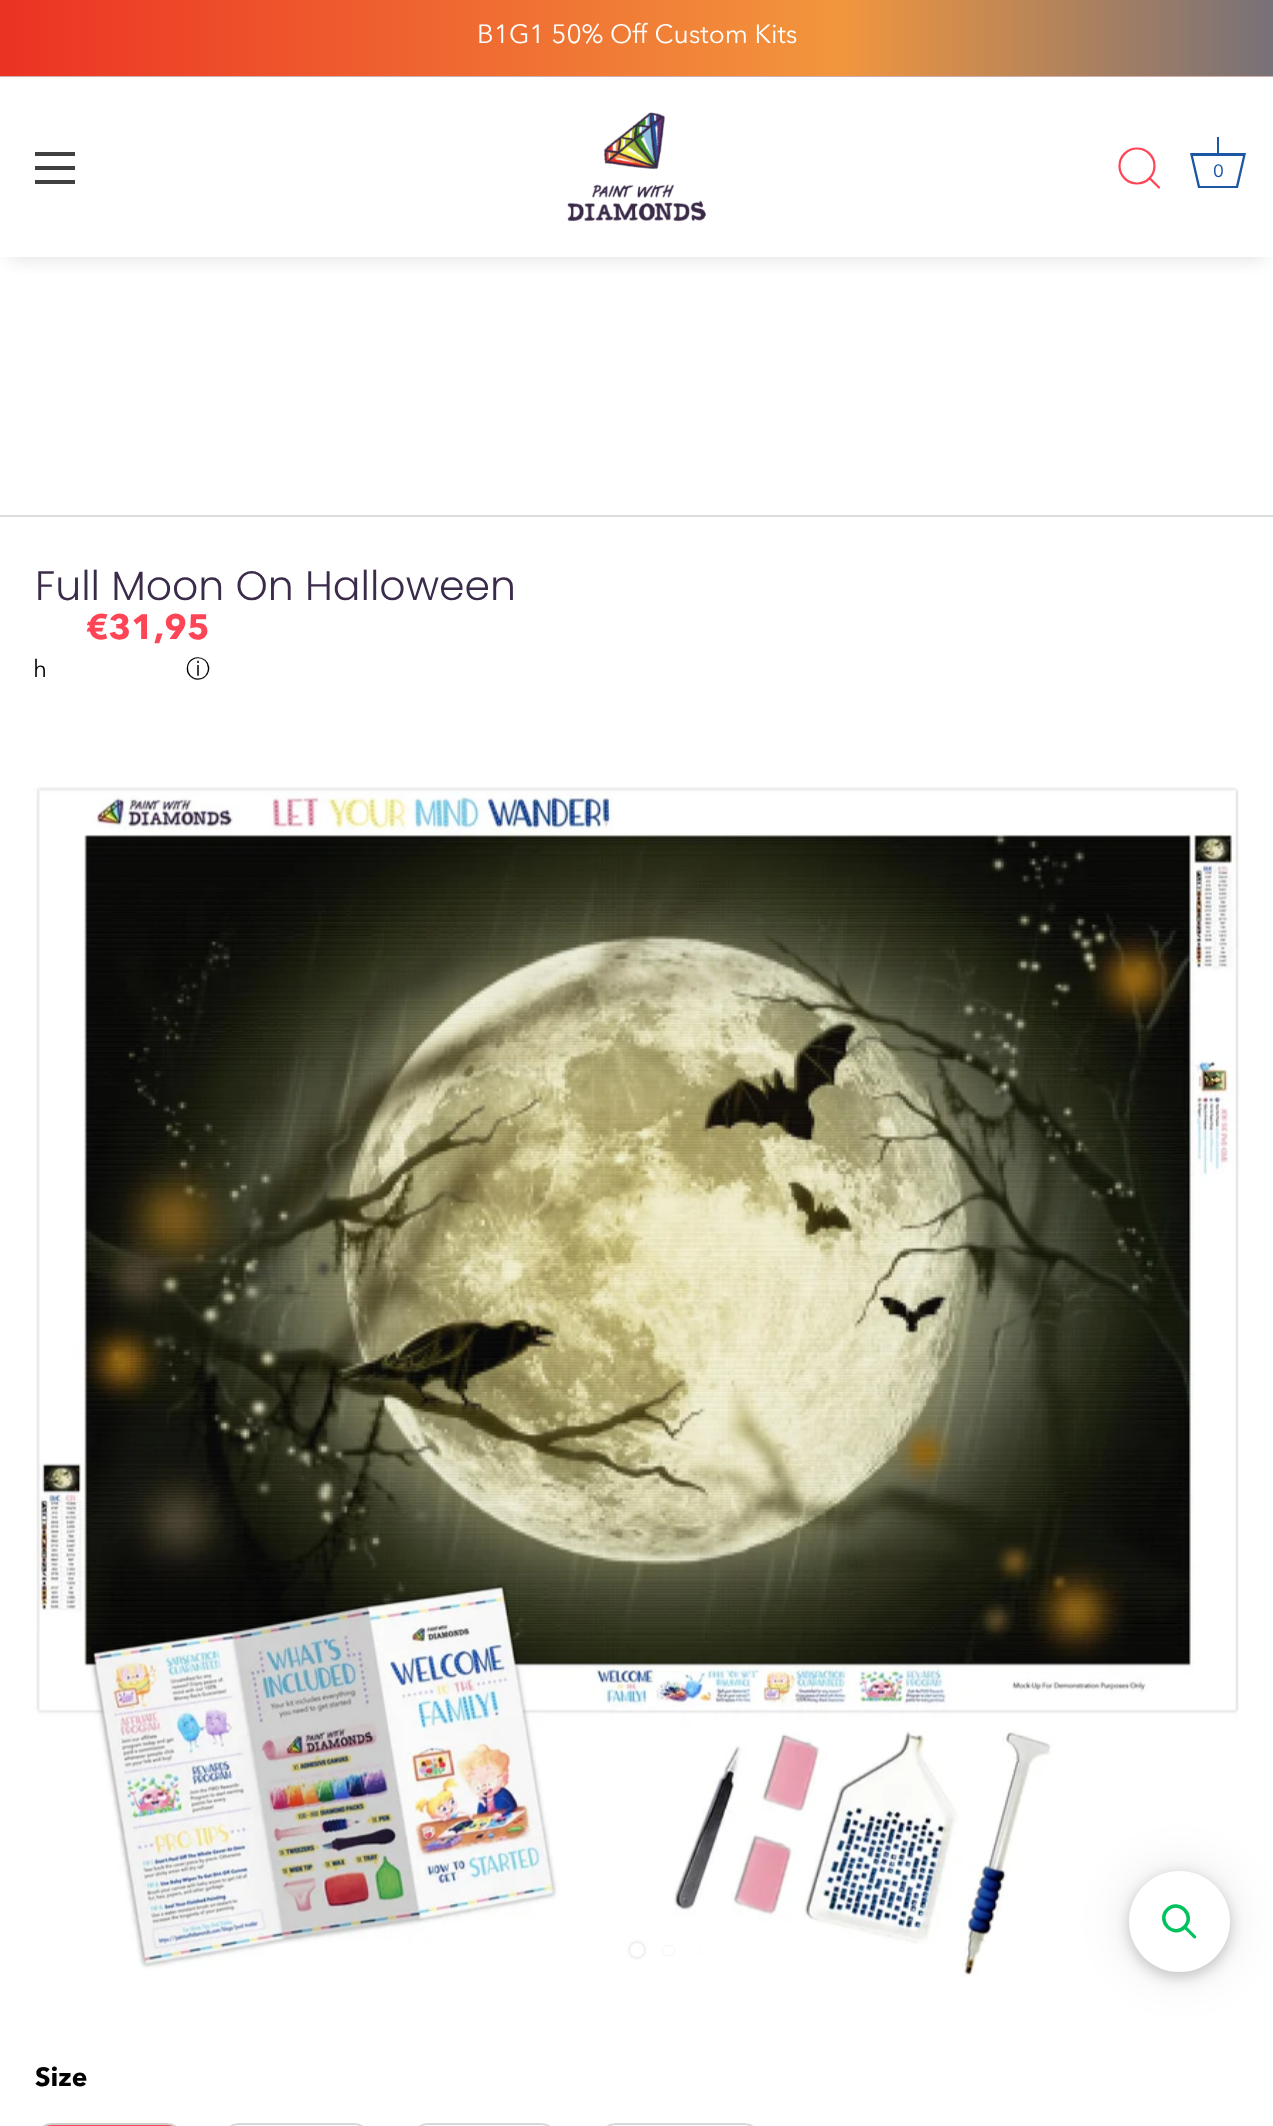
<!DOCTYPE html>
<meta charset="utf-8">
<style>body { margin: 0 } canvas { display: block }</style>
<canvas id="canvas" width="1273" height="2126"></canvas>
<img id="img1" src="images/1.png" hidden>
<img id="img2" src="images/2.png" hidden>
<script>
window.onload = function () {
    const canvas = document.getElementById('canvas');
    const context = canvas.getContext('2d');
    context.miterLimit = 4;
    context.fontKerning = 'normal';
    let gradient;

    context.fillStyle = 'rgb(255, 255, 255)';
    context.fillRect(0, 0, 1273, 2126);
    context.save();
    context.beginPath();
    context.rect(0, 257, 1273, 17);
    context.clip();
    context.fillStyle = 'rgba(181, 181, 181, 0.4)';
    context.filter = 'blur(9px)';
    context.beginPath();
    context.rect(9, 19, 1256, 240);
    context.fill();
    context.filter = 'none';
    context.restore();
    context.fillStyle = 'rgb(210, 175, 175)';
    context.fillRect(0, 76, 1273, 1);
    gradient = context.createLinearGradient(0, 38, 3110, 38);
    gradient.addColorStop(0, 'rgb(236, 50, 35)');
    gradient.addColorStop(0.27, 'rgb(242, 150, 61)');
    gradient.addColorStop(0.51, 'rgb(29, 86, 163)');
    gradient.addColorStop(0.76, 'rgb(145, 192, 229)');
    gradient.addColorStop(1, 'rgb(101, 55, 121)');
    context.fillStyle = gradient;
    context.fillRect(0, 0, 1273, 76);
    context.fillStyle = 'rgb(66, 63, 63)';
    context.fillRect(35, 152, 40, 4);
    context.fillRect(35, 166, 40, 4);
    context.fillRect(35, 180, 40, 4);
    context.drawImage(document.getElementById('img1'), 567, 112, 139, 110);
    context.beginPath();
    context.arc(1137, 166, 17.5, 0, 2 * Math.PI);
    context.strokeStyle = 'rgb(254, 69, 85)';
    context.lineWidth = 2.2;
    context.stroke();
    context.beginPath();
    context.moveTo(1159, 187.5);
    context.lineTo(1149.5, 178);
    context.lineCap = 'round';
    context.lineJoin = 'round';
    context.stroke();
    context.fillStyle = 'rgb(29, 86, 163)';
    context.fillRect(1217, 137, 2, 16);
    context.beginPath();
    context.moveTo(1243, 156);
    context.lineTo(1236, 186);
    context.lineTo(1200, 186);
    context.lineTo(1193, 156);
    context.lineTo(1243, 156);
    context.moveTo(1246, 153);
    context.lineTo(1190, 153);
    context.lineTo(1198, 188);
    context.lineTo(1238, 188);
    context.closePath();
    context.fill();
    context.fillStyle = 'rgb(221, 221, 221)';
    context.fillRect(0, 515, 1273, 2);
    context.drawImage(document.getElementById('img2'), 33, 787, 1206, 1190);
    context.fillStyle = 'rgba(0, 0, 0, 0.2)';
    context.filter = 'blur(2px)';
    context.beginPath();
    context.roundRect(630, 1943, 14, 14, 7);
    context.fill();
    context.filter = 'none';
    context.fillStyle = 'rgb(255, 255, 255)';
    context.beginPath();
    context.arc(637, 1950, 7, 0, 2 * Math.PI);
    context.fill();
    context.fillStyle = 'rgba(128, 128, 128, 0.2)';
    context.filter = 'blur(1px)';
    context.beginPath();
    context.roundRect(663, 1946, 11, 9, 4.5);
    context.fill();
    context.filter = 'none';
    context.fillStyle = 'rgb(255, 255, 255)';
    context.beginPath();
    context.roundRect(663, 1946, 11, 9, 4.5);
    context.fill();
    context.fillStyle = 'rgba(128, 128, 128, 0.2)';
    context.filter = 'blur(0.5px)';
    context.beginPath();
    context.roundRect(698, 1948, 4, 5, 2);
    context.fill();
    context.filter = 'none';
    context.fillStyle = 'rgb(255, 255, 255)';
    context.beginPath();
    context.roundRect(698, 1948, 4, 5, 2);
    context.fill();
    context.fillStyle = 'rgb(254, 69, 85)';
    context.beginPath();
    context.roundRect(36, 2124, 147, 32, 28);
    context.fill();
    context.strokeStyle = 'rgb(206, 206, 206)';
    context.lineWidth = 2;
    context.lineJoin = 'miter';
    context.stroke();
    context.beginPath();
    context.roundRect(223, 2124, 147, 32, 28);
    context.strokeStyle = 'rgb(216, 216, 216)';
    context.stroke();
    context.fillStyle = 'rgb(255, 255, 255)';
    context.fillRect(238, 2125, 117, 1);
    context.beginPath();
    context.roundRect(412, 2124, 145, 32, 28);
    context.stroke();
    context.fillRect(427, 2125, 115, 1);
    context.beginPath();
    context.roundRect(600, 2124, 160, 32, 28);
    context.stroke();
    context.fillRect(615, 2125, 130, 1);
    context.fillStyle = 'rgba(0, 0, 0, 0.05)';
    context.filter = 'blur(7px)';
    context.beginPath();
    context.roundRect(1129, 1878, 101, 101, 50.5);
    context.fill();
    context.filter = 'none';
    context.fillStyle = 'rgba(0, 0, 0, 0.15)';
    context.filter = 'blur(7px)';
    context.beginPath();
    context.roundRect(1129, 1874, 101, 102, 50.5);
    context.fill();
    context.filter = 'none';
    context.fillStyle = 'rgba(0, 0, 0, 0.1)';
    context.filter = 'blur(26px)';
    context.beginPath();
    context.roundRect(1129, 1871, 101, 101, 50.5);
    context.fill();
    context.filter = 'none';
    context.fillStyle = 'rgb(255, 255, 255)';
    context.beginPath();
    context.arc(1179.5, 1921.5, 50.5, 0, 2 * Math.PI);
    context.fill();
    context.beginPath();
    context.moveTo(1167.5, 1909.5);
    context.bezierCurveTo(1178.5, 1898.5, 1196, 1915.5, 1184.5, 1927);
    context.bezierCurveTo(1173.5, 1938.5, 1156, 1921, 1167.5, 1909.5);
    context.closePath();
    context.strokeStyle = 'rgb(0, 194, 95)';
    context.lineWidth = 3.5;
    context.lineCap = 'butt';
    context.stroke();
    context.fillStyle = 'rgb(0, 194, 95)';
    context.beginPath();
    context.moveTo(1183.5, 1928);
    context.lineTo(1186, 1926);
    context.lineTo(1196, 1936);
    context.bezierCurveTo(1197, 1937.5, 1195, 1939.5, 1193.5, 1938);
    context.closePath();
    context.fill();
    context.font = '26.25px Avenir Next';
    context.fillStyle = 'rgb(255, 255, 255)';
    context.fillText('B1G1 50% Off Custom Kits', 477, 43);
    context.font = '18px Nunito Sans';
    context.fillStyle = 'rgb(29, 86, 163)';
    context.fillText('0', 1213, 177);
    context.font = '300 41px Poppins';
    context.fillStyle = 'rgb(58, 43, 74)';
    context.fillText('Full Moon On Halloween', 35, 600);
    context.font = 'bold 35px Avenir Next';
    context.fillStyle = 'rgb(254, 69, 85)';
    context.fillText('€31,95', 86, 639);
    context.font = '24px Avenir Next';
    context.fillStyle = 'rgb(0, 0, 0)';
    context.fillText('h', 33, 677);
    context.font = '500 24px WenQuanYi Zen Hei';
    context.fillText('ⓘ', 186, 677);
    context.font = 'bold 26.25px Avenir Next';
    context.fillText('Size', 35, 2086);
};
</script>
